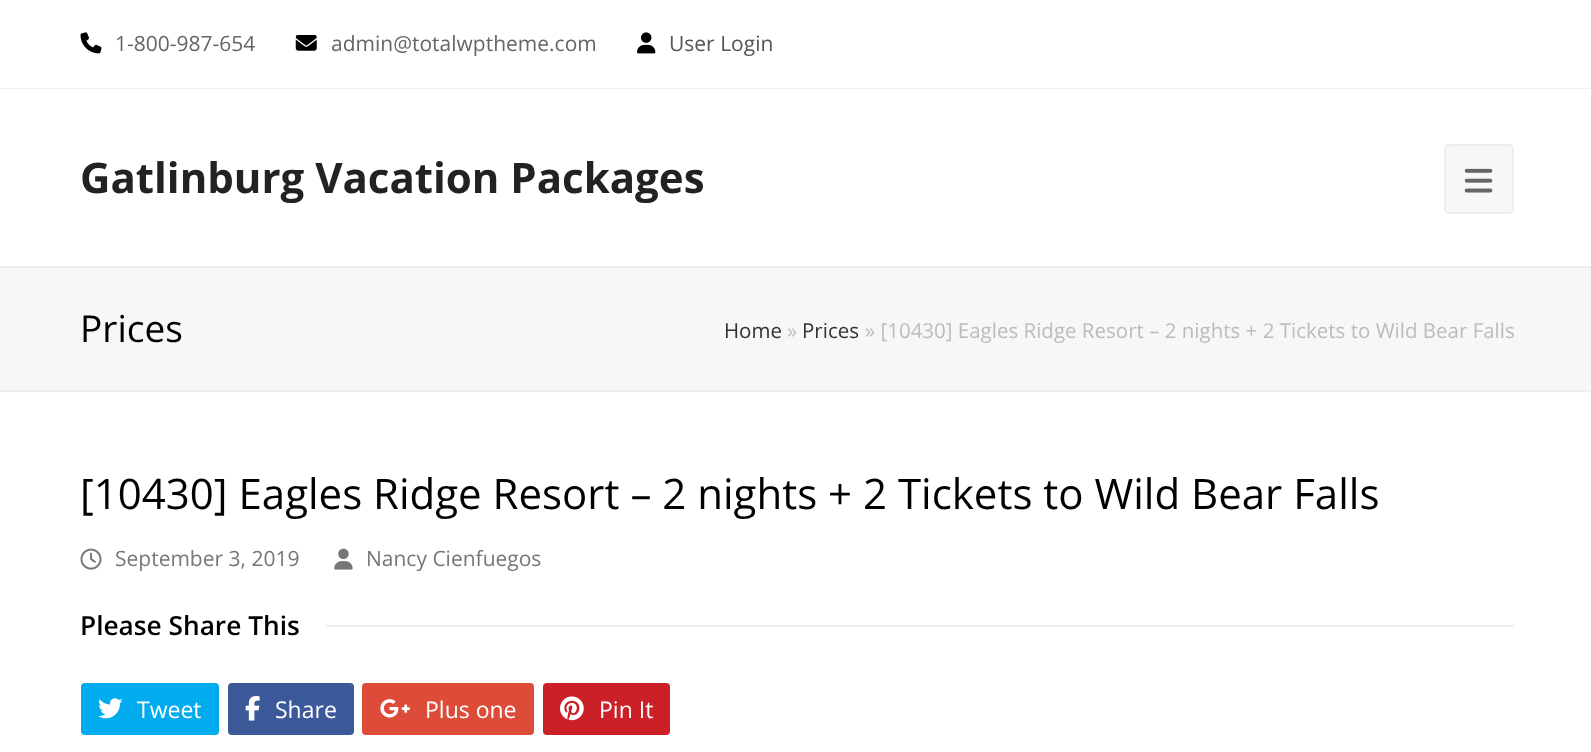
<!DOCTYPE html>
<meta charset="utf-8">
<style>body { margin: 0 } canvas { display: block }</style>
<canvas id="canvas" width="1591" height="752"></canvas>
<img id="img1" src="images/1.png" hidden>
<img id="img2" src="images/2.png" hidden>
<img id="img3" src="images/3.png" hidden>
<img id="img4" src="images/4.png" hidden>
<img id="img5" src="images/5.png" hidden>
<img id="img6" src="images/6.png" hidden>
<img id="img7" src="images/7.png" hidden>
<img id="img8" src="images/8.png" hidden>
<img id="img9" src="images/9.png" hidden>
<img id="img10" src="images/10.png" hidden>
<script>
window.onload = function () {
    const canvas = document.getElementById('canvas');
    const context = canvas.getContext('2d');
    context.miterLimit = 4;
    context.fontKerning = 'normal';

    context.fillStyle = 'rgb(255, 255, 255)';
    context.fillRect(0, 0, 1591, 752);
    context.fillStyle = 'rgb(238, 238, 238)';
    context.fillRect(0, 88, 1591, 1);
    context.drawImage(document.getElementById('img1'), 80, 32, 22, 22);
    context.drawImage(document.getElementById('img2'), 295, 35, 22, 16);
    context.drawImage(document.getElementById('img3'), 637, 32, 19, 22);
    context.fillStyle = 'rgb(247, 247, 247)';
    context.beginPath();
    context.roundRect(1445, 145, 68, 68, 4);
    context.fill();
    context.strokeStyle = 'rgb(238, 238, 238)';
    context.lineWidth = 2;
    context.stroke();
    context.drawImage(document.getElementById('img4'), 1464, 168, 29, 25);
    context.fillRect(0, 268, 1591, 122);
    context.fillStyle = 'rgb(238, 238, 238)';
    context.fillRect(0, 266, 1591, 2);
    context.fillRect(0, 390, 1591, 2);
    context.drawImage(document.getElementById('img5'), 80, 548, 22, 22);
    context.drawImage(document.getElementById('img6'), 334, 548, 19, 22);
    context.fillRect(326, 625, 1188, 2);
    context.fillStyle = 'rgb(0, 172, 237)';
    context.beginPath();
    context.roundRect(81, 683, 138, 52, 4);
    context.fill();
    context.drawImage(document.getElementById('img7'), 98, 698, 25, 21);
    context.fillStyle = 'rgb(59, 89, 152)';
    context.beginPath();
    context.roundRect(228, 683, 126, 52, 4);
    context.fill();
    context.drawImage(document.getElementById('img8'), 245, 696, 15, 25);
    context.fillStyle = 'rgb(221, 75, 57)';
    context.beginPath();
    context.roundRect(362, 683, 172, 52, 4);
    context.fill();
    context.drawImage(document.getElementById('img9'), 380, 699, 30, 19);
    context.fillStyle = 'rgb(203, 32, 39)';
    context.beginPath();
    context.roundRect(543, 683, 127, 52, 4);
    context.fill();
    context.drawImage(document.getElementById('img10'), 560, 696, 24, 25);
    context.font = '21px Open Sans';
    context.fillStyle = 'rgb(102, 102, 102)';
    context.fillText('1-800-987-654', 115, 51);
    context.fillText('admin@totalwptheme.com', 331, 51);
    context.fillStyle = 'rgb(85, 85, 85)';
    context.fillText('User Login', 669, 51);
    context.font = 'bold 42px Open Sans';
    context.fillStyle = 'rgb(34, 34, 34)';
    context.fillText('Gatlinburg Vacation Packages', 80, 193);
    context.font = '37px Open Sans';
    context.fillStyle = 'rgb(0, 0, 0)';
    context.fillText('Prices', 80, 342);
    context.font = '20.5px Open Sans';
    context.fillStyle = 'rgb(51, 51, 51)';
    context.fillText('Home', 724, 338);
    context.fillStyle = 'rgb(188, 188, 188)';
    context.fillText('»', 787, 338);
    context.fillStyle = 'rgb(51, 51, 51)';
    context.fillText('Prices', 802, 338);
    context.fillStyle = 'rgb(188, 188, 188)';
    context.fillText('» [10430] Eagles Ridge Resort – 2 nights + 2 Tickets to Wild Bear Falls', 865, 338);
    context.font = '42px Open Sans';
    context.fillStyle = 'rgb(0, 0, 0)';
    context.fillText('[10430] Eagles Ridge Resort – 2 nights + 2 Tickets to Wild Bear Falls', 80, 509);
    context.font = '21px Open Sans';
    context.fillStyle = 'rgb(119, 119, 119)';
    context.fillText('September 3, 2019', 115, 566);
    context.fillText('Nancy Cienfuegos', 366, 566);
    context.font = '600 26.25px Open Sans';
    context.fillStyle = 'rgb(0, 0, 0)';
    context.fillText('Please Share This', 80, 635);
    context.font = '23px Open Sans';
    context.fillStyle = 'rgb(255, 255, 255)';
    context.fillText('Tweet', 137, 718);
    context.fillText('Share', 275, 718);
    context.fillText('Plus one', 425, 718);
    context.fillText('Pin It', 599, 718);
};
</script>
